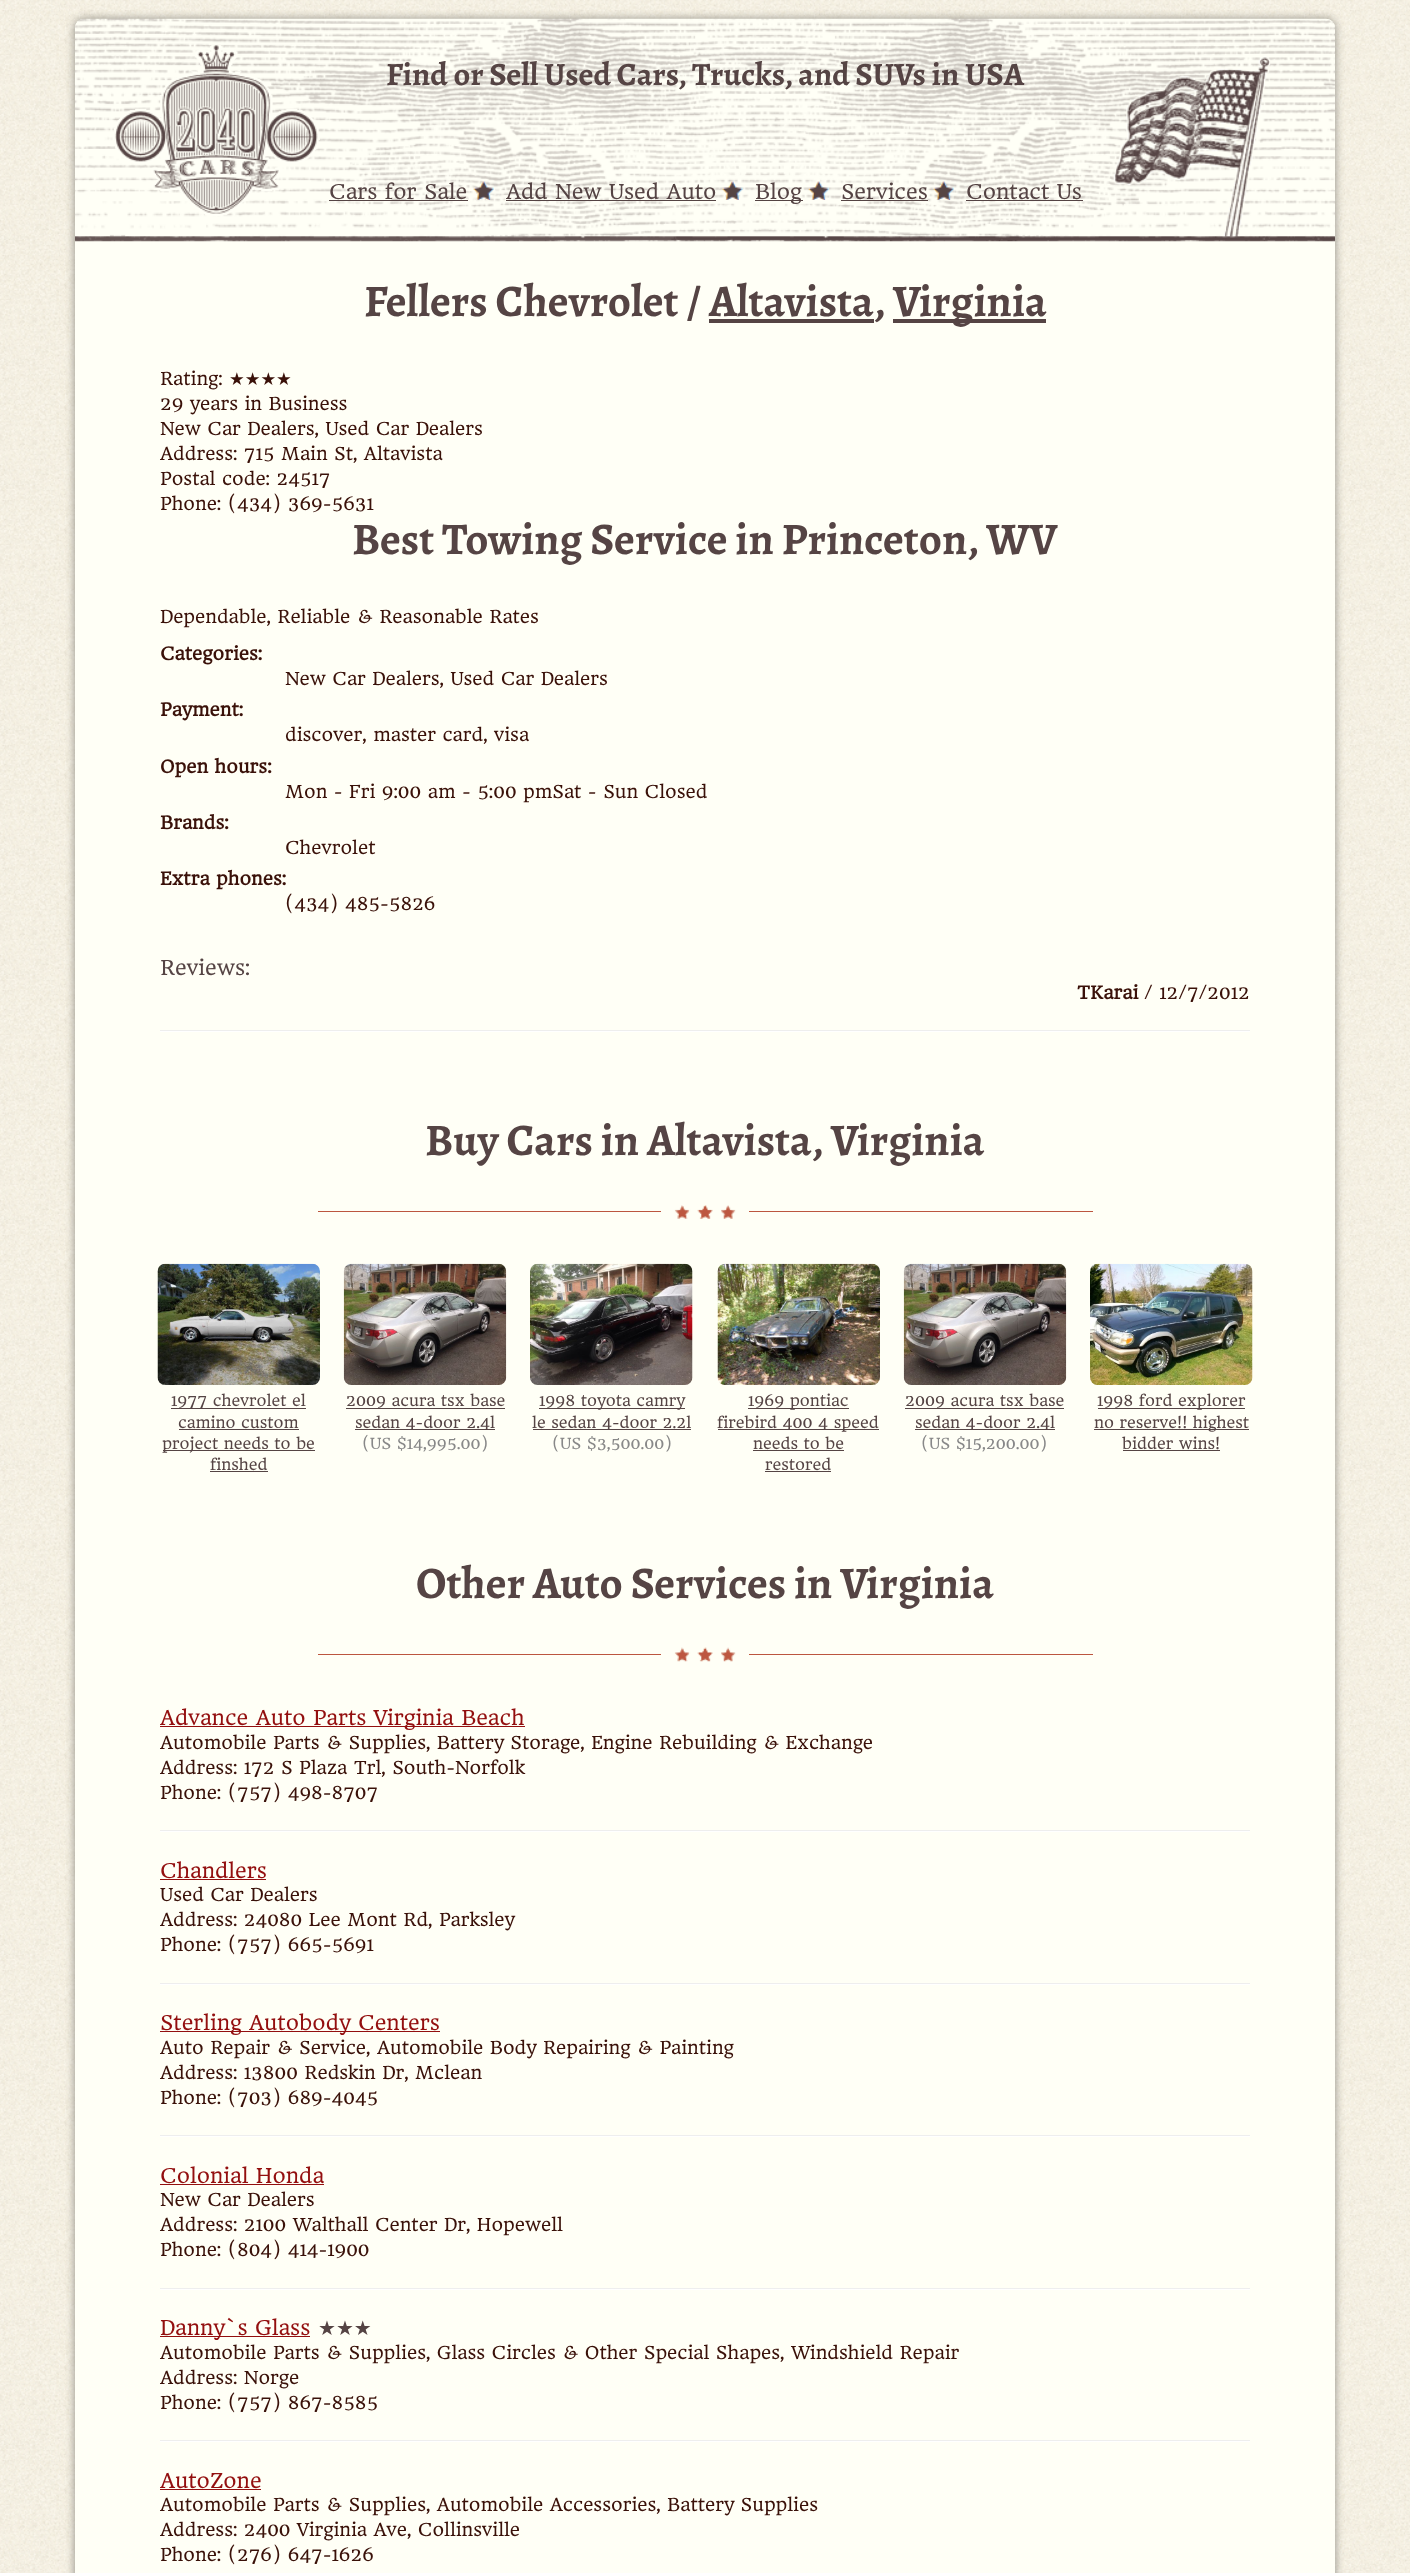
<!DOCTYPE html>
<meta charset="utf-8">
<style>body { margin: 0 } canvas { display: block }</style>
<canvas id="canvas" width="1410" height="2573"></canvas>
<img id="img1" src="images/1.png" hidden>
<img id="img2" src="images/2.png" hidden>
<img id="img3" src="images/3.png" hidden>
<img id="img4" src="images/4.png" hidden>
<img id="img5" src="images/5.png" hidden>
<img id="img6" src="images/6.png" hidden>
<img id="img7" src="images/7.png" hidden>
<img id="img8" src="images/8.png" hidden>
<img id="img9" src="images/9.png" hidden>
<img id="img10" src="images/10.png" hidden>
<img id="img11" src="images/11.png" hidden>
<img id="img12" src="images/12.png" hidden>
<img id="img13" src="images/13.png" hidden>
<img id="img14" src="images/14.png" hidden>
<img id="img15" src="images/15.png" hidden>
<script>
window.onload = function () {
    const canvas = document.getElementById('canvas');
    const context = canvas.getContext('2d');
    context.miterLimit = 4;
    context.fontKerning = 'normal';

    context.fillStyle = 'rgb(255, 255, 255)';
    context.fillRect(0, 0, 1410, 2573);
    context.drawImage(document.getElementById('img1'), 0, 0, 1410, 2573);
    context.fillStyle = 'rgb(142, 139, 130)';
    context.filter = 'blur(5px)';
    context.beginPath();
    context.roundRect(75, 19, 1260, 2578, 9);
    context.fill();
    context.filter = 'none';
    context.fillStyle = 'rgb(255, 255, 246)';
    context.beginPath();
    context.roundRect(75, 19, 1260, 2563, 9);
    context.fill();
    context.drawImage(document.getElementById('img2'), 75, 18, 1260, 224);
    context.drawImage(document.getElementById('img3'), 113, 45, 207, 171);
    context.fillStyle = 'rgb(85, 68, 68)';
    context.fillRect(329, 200, 139, 1);
    context.drawImage(document.getElementById('img4'), 473, 181, 21, 19);
    context.fillRect(506, 200, 210, 1);
    context.drawImage(document.getElementById('img5'), 722, 181, 21, 19);
    context.fillRect(755, 200, 48, 1);
    context.drawImage(document.getElementById('img6'), 808, 181, 21, 19);
    context.fillRect(841, 200, 87, 1);
    context.drawImage(document.getElementById('img7'), 933, 181, 21, 19);
    context.fillRect(966, 200, 117, 1);
    context.fillRect(893, 319, 153, 4);
    context.fillRect(709, 319, 165, 4);
    context.fillStyle = 'rgb(238, 238, 238)';
    context.fillRect(160, 1030, 1090, 1);
    context.fillStyle = 'rgb(255, 255, 255)';
    context.fillRect(160, 1031, 1090, 1);
    context.fillStyle = 'rgb(188, 86, 63)';
    context.fillRect(318, 1211, 775, 1);
    context.fillStyle = 'rgb(255, 255, 246)';
    context.fillRect(661, 1211, 88, 1);
    context.drawImage(document.getElementById('img8'), 674, 1205, 62, 14);
    context.drawImage(document.getElementById('img9'), 157, 1263, 163, 122);
    context.fillStyle = 'rgb(85, 68, 68)';
    context.fillRect(171, 1408, 135, 1);
    context.fillRect(179, 1429, 120, 1);
    context.fillRect(163, 1450, 152, 1);
    context.fillRect(210, 1471, 58, 1);
    context.drawImage(document.getElementById('img10'), 343, 1263, 164, 122);
    context.fillRect(346, 1408, 159, 1);
    context.fillRect(355, 1429, 140, 1);
    context.drawImage(document.getElementById('img11'), 530, 1263, 163, 122);
    context.fillRect(539, 1408, 146, 1);
    context.fillRect(533, 1429, 158, 1);
    context.drawImage(document.getElementById('img12'), 717, 1263, 163, 122);
    context.fillRect(748, 1408, 101, 1);
    context.fillRect(718, 1429, 161, 1);
    context.fillRect(753, 1450, 91, 1);
    context.fillRect(765, 1471, 66, 1);
    context.drawImage(document.getElementById('img13'), 903, 1263, 164, 122);
    context.fillRect(905, 1408, 159, 1);
    context.fillRect(915, 1429, 140, 1);
    context.drawImage(document.getElementById('img14'), 1090, 1263, 163, 122);
    context.fillRect(1098, 1408, 147, 1);
    context.fillRect(1094, 1429, 155, 1);
    context.fillRect(1123, 1450, 97, 1);
    context.fillStyle = 'rgb(188, 86, 63)';
    context.fillRect(318, 1654, 775, 1);
    context.fillStyle = 'rgb(255, 255, 246)';
    context.fillRect(661, 1654, 88, 1);
    context.drawImage(document.getElementById('img15'), 674, 1647, 62, 15);
    context.fillStyle = 'rgb(147, 15, 15)';
    context.fillRect(160, 1726, 365, 1);
    context.fillStyle = 'rgb(238, 238, 238)';
    context.fillRect(160, 1830, 1090, 1);
    context.fillStyle = 'rgb(255, 255, 255)';
    context.fillRect(160, 1831, 1090, 1);
    context.fillStyle = 'rgb(147, 15, 15)';
    context.fillRect(160, 1879, 106, 1);
    context.fillStyle = 'rgb(238, 238, 238)';
    context.fillRect(160, 1983, 1090, 1);
    context.fillStyle = 'rgb(255, 255, 255)';
    context.fillRect(160, 1984, 1090, 1);
    context.fillStyle = 'rgb(147, 15, 15)';
    context.fillRect(160, 2031, 280, 1);
    context.fillStyle = 'rgb(238, 238, 238)';
    context.fillRect(160, 2135, 1090, 1);
    context.fillStyle = 'rgb(255, 255, 255)';
    context.fillRect(160, 2136, 1090, 1);
    context.fillStyle = 'rgb(147, 15, 15)';
    context.fillRect(160, 2184, 164, 1);
    context.fillStyle = 'rgb(238, 238, 238)';
    context.fillRect(160, 2288, 1090, 1);
    context.fillStyle = 'rgb(255, 255, 255)';
    context.fillRect(160, 2289, 1090, 1);
    context.fillStyle = 'rgb(147, 15, 15)';
    context.fillRect(160, 2336, 150, 1);
    context.fillStyle = 'rgb(238, 238, 238)';
    context.fillRect(160, 2440, 1090, 1);
    context.fillStyle = 'rgb(255, 255, 255)';
    context.fillRect(160, 2441, 1090, 1);
    context.fillStyle = 'rgb(147, 15, 15)';
    context.fillRect(160, 2489, 101, 1);
    context.font = 'bold 32.5px Alegreya';
    context.fillStyle = 'rgb(85, 68, 68)';
    context.fillText('Find or Sell Used Cars, Trucks, and SUVs in USA', 386, 85);
    context.font = '20px HeadlandOne';
    context.fillText('Cars for Sale', 329, 199);
    context.fillText('Add New Used Auto', 506, 199);
    context.fillText('Blog', 755, 199);
    context.fillText('Services', 841, 199);
    context.fillText('Contact Us', 966, 199);
    context.font = 'bold 45px Alegreya';
    context.fillText('Fellers Chevrolet / Altavista,', 364, 316);
    context.fillText('Virginia', 893, 316);
    context.font = '17.5px HeadlandOne';
    context.fillStyle = 'rgb(58, 17, 9)';
    context.fillText('Rating:', 160, 385);
    context.font = '17.5px DejaVu Sans';
    context.fillText('★★★★', 229, 385);
    context.font = '17.5px HeadlandOne';
    context.fillText('29 years in Business', 160, 410);
    context.fillText('New Car Dealers, Used Car Dealers', 160, 435);
    context.fillText('Address: 715 Main St, Altavista', 160, 460);
    context.fillText('Postal code: 24517', 160, 485);
    context.fillText('Phone: (434) 369-5631', 160, 510);
    context.font = 'bold 45px Alegreya';
    context.fillStyle = 'rgb(85, 68, 68)';
    context.fillText('Best Towing Service in Princeton, WV', 352, 554);
    context.font = '17.5px HeadlandOne';
    context.fillStyle = 'rgb(58, 17, 9)';
    context.fillText('Dependable, Reliable & Reasonable Rates', 160, 623);
    context.font = 'bold 17.5px HeadlandOne';
    context.fillText('Categories:', 160, 660);
    context.font = '17.5px HeadlandOne';
    context.fillText('New Car Dealers, Used Car Dealers', 285, 685);
    context.font = 'bold 17.5px HeadlandOne';
    context.fillText('Payment:', 160, 716);
    context.font = '17.5px HeadlandOne';
    context.fillText('discover, master card, visa', 285, 741);
    context.font = 'bold 17.5px HeadlandOne';
    context.fillText('Open hours:', 160, 773);
    context.font = '17.5px HeadlandOne';
    context.fillText('Mon - Fri 9:00 am - 5:00 pmSat - Sun Closed', 285, 798);
    context.font = 'bold 17.5px HeadlandOne';
    context.fillText('Brands:', 160, 829);
    context.font = '17.5px HeadlandOne';
    context.fillText('Chevrolet', 285, 854);
    context.font = 'bold 17.5px HeadlandOne';
    context.fillText('Extra phones:', 160, 885);
    context.font = '17.5px HeadlandOne';
    context.fillText('(434) 485-5826', 285, 910);
    context.font = '20px HeadlandOne';
    context.fillStyle = 'rgb(85, 68, 68)';
    context.fillText('Reviews:', 160, 975);
    context.font = 'bold 17.5px HeadlandOne';
    context.fillStyle = 'rgb(58, 17, 9)';
    context.fillText('TKarai', 1077, 999);
    context.font = '17.5px HeadlandOne';
    context.fillText('/ 12/7/2012', 1144, 999);
    context.font = 'bold 45px Alegreya';
    context.fillStyle = 'rgb(85, 68, 68)';
    context.fillText('Buy Cars in Altavista, Virginia', 425, 1155);
    context.font = '15px HeadlandOne';
    context.fillText('1977 chevrolet el', 171, 1406);
    context.fillText('camino custom', 178, 1428);
    context.fillText('project needs to be', 162, 1449);
    context.fillText('finshed', 210, 1470);
    context.fillText('2009 acura tsx base', 346, 1406);
    context.fillText('sedan 4-door 2.4l', 355, 1428);
    context.fillStyle = 'rgb(136, 136, 136)';
    context.fillText('(US $14,995.00)', 362, 1449);
    context.fillStyle = 'rgb(85, 68, 68)';
    context.fillText('1998 toyota camry', 539, 1406);
    context.fillText('le sedan 4-door 2.2l', 532, 1428);
    context.fillStyle = 'rgb(136, 136, 136)';
    context.fillText('(US $3,500.00)', 552, 1449);
    context.fillStyle = 'rgb(85, 68, 68)';
    context.fillText('1969 pontiac', 748, 1406);
    context.fillText('firebird 400 4 speed', 717, 1428);
    context.fillText('needs to be', 753, 1449);
    context.fillText('restored', 765, 1470);
    context.fillText('2009 acura tsx base', 905, 1406);
    context.fillText('sedan 4-door 2.4l', 915, 1428);
    context.fillStyle = 'rgb(136, 136, 136)';
    context.fillText('(US $15,200.00)', 921, 1449);
    context.fillStyle = 'rgb(85, 68, 68)';
    context.fillText('1998 ford explorer', 1097, 1406);
    context.fillText('no reserve!! highest', 1094, 1428);
    context.fillText('bidder wins!', 1122, 1449);
    context.font = 'bold 45px Alegreya';
    context.fillText('Other Auto Services in Virginia', 416, 1598);
    context.font = '20px HeadlandOne';
    context.fillStyle = 'rgb(147, 15, 15)';
    context.fillText('Advance Auto Parts Virginia Beach', 160, 1725);
    context.font = '17.5px HeadlandOne';
    context.fillStyle = 'rgb(58, 17, 9)';
    context.fillText('Automobile Parts & Supplies, Battery Storage, Engine Rebuilding & Exchange', 160, 1749);
    context.fillText('Address: 172 S Plaza Trl, South-Norfolk', 160, 1774);
    context.fillText('Phone: (757) 498-8707', 160, 1799);
    context.font = '20px HeadlandOne';
    context.fillStyle = 'rgb(147, 15, 15)';
    context.fillText('Chandlers', 160, 1878);
    context.font = '17.5px HeadlandOne';
    context.fillStyle = 'rgb(58, 17, 9)';
    context.fillText('Used Car Dealers', 160, 1901);
    context.fillText('Address: 24080 Lee Mont Rd, Parksley', 160, 1926);
    context.fillText('Phone: (757) 665-5691', 160, 1951);
    context.font = '20px HeadlandOne';
    context.fillStyle = 'rgb(147, 15, 15)';
    context.fillText('Sterling Autobody Centers', 160, 2030);
    context.font = '17.5px HeadlandOne';
    context.fillStyle = 'rgb(58, 17, 9)';
    context.fillText('Auto Repair & Service, Automobile Body Repairing & Painting', 160, 2054);
    context.fillText('Address: 13800 Redskin Dr, Mclean', 160, 2079);
    context.fillText('Phone: (703) 689-4045', 160, 2104);
    context.font = '20px HeadlandOne';
    context.fillStyle = 'rgb(147, 15, 15)';
    context.fillText('Colonial Honda', 160, 2183);
    context.font = '17.5px HeadlandOne';
    context.fillStyle = 'rgb(58, 17, 9)';
    context.fillText('New Car Dealers', 160, 2206);
    context.fillText('Address: 2100 Walthall Center Dr, Hopewell', 160, 2231);
    context.fillText('Phone: (804) 414-1900', 160, 2256);
    context.font = '20px HeadlandOne';
    context.fillStyle = 'rgb(147, 15, 15)';
    context.fillText('Danny`s Glass', 160, 2335);
    context.font = '20px DejaVu Sans';
    context.fillStyle = 'rgb(85, 68, 68)';
    context.fillText('★★★', 318, 2335);
    context.font = '17.5px HeadlandOne';
    context.fillStyle = 'rgb(58, 17, 9)';
    context.fillText('Automobile Parts & Supplies, Glass Circles & Other Special Shapes, Windshield Repair', 160, 2359);
    context.fillText('Address: Norge', 160, 2384);
    context.fillText('Phone: (757) 867-8585', 160, 2409);
    context.font = '20px HeadlandOne';
    context.fillStyle = 'rgb(147, 15, 15)';
    context.fillText('AutoZone', 160, 2488);
    context.font = '17.5px HeadlandOne';
    context.fillStyle = 'rgb(58, 17, 9)';
    context.fillText('Automobile Parts & Supplies, Automobile Accessories, Battery Supplies', 160, 2511);
    context.fillText('Address: 2400 Virginia Ave, Collinsville', 160, 2536);
    context.fillText('Phone: (276) 647-1626', 160, 2561);
};
</script>
